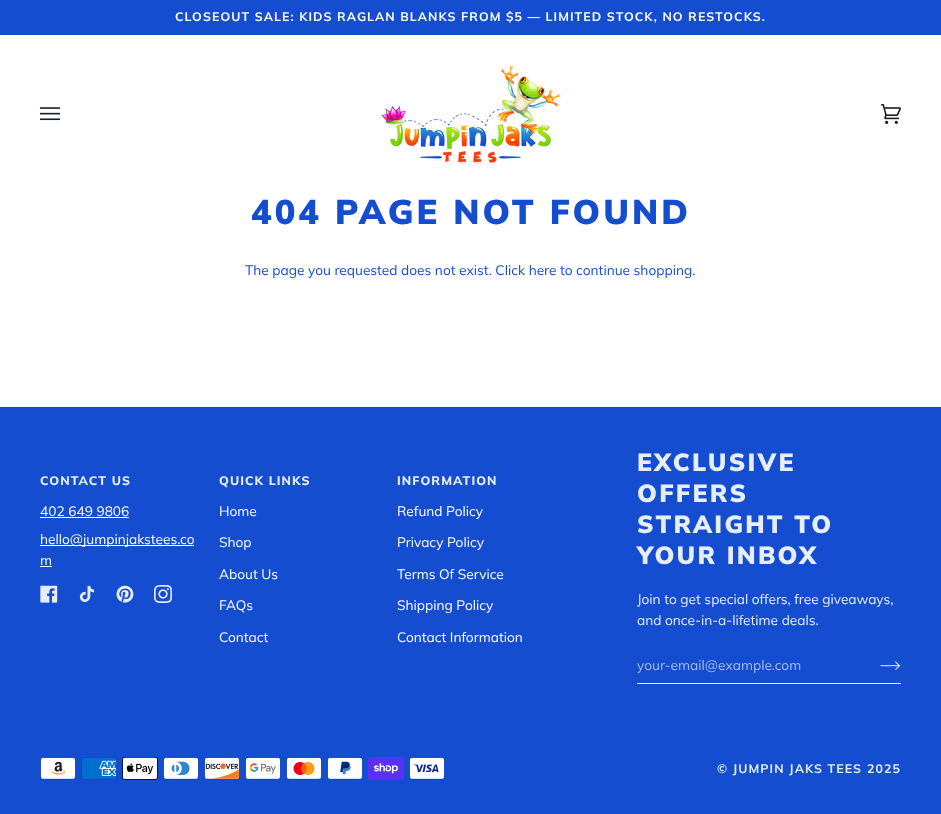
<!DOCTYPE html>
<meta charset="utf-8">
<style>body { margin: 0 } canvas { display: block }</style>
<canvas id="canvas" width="941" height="814"></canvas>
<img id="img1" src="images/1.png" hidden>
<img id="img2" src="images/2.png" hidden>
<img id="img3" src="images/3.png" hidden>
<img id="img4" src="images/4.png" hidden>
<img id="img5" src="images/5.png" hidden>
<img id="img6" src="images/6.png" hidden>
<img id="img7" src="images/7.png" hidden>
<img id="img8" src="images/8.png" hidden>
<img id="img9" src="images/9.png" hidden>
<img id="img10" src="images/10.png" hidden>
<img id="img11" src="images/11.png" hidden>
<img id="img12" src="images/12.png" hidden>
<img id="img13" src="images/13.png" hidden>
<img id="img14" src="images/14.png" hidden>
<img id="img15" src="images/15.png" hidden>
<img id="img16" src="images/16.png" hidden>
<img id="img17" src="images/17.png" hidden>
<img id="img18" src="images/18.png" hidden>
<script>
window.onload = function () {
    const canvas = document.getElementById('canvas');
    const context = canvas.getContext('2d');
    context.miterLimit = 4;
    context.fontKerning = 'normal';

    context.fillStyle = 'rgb(255, 255, 255)';
    context.fillRect(0, 0, 941, 814);
    context.fillStyle = 'rgb(20, 77, 208)';
    context.fillRect(0, 0, 941, 35);
    context.drawImage(document.getElementById('img1'), 40, 107, 20, 14);
    context.drawImage(document.getElementById('img2'), 381, 65, 180, 98);
    context.drawImage(document.getElementById('img3'), 881, 104, 20, 20);
    context.fillRect(0, 407, 941, 407);
    context.fillStyle = 'rgb(255, 255, 255)';
    context.fillRect(40, 517, 89, 1);
    context.fillRect(40, 545, 154, 1);
    context.fillRect(40, 566, 12, 1);
    context.drawImage(document.getElementById('img4'), 40, 585, 18, 18);
    context.drawImage(document.getElementById('img5'), 79, 585, 16, 17);
    context.drawImage(document.getElementById('img6'), 116, 585, 18, 18);
    context.drawImage(document.getElementById('img7'), 154, 585, 18, 18);
    context.fillStyle = 'rgb(232, 237, 250)';
    context.fillRect(637, 683, 264, 1);
    context.drawImage(document.getElementById('img8'), 880, 661, 21, 9);
    context.drawImage(document.getElementById('img9'), 40, 757, 36, 23);
    context.drawImage(document.getElementById('img10'), 81, 757, 36, 23);
    context.drawImage(document.getElementById('img11'), 122, 757, 36, 23);
    context.drawImage(document.getElementById('img12'), 163, 757, 36, 23);
    context.drawImage(document.getElementById('img13'), 204, 757, 36, 23);
    context.drawImage(document.getElementById('img14'), 245, 757, 36, 23);
    context.drawImage(document.getElementById('img15'), 286, 757, 36, 23);
    context.drawImage(document.getElementById('img16'), 327, 757, 36, 23);
    context.drawImage(document.getElementById('img17'), 368, 757, 36, 23);
    context.drawImage(document.getElementById('img18'), 409, 757, 36, 23);
    context.letterSpacing = '1.1px';
    context.font = 'bold 12.35px Muli';
    context.fillStyle = 'rgb(255, 255, 255)';
    context.fillText('CLOSEOUT SALE: KIDS RAGLAN BLANKS FROM $5 — LIMITED STOCK, NO RESTOCKS.', 175, 21);
    context.letterSpacing = '3.1px';
    context.font = '900 34.25px Muli';
    context.fillStyle = 'rgb(20, 77, 208)';
    context.fillText('404 PAGE NOT FOUND', 251, 224);
    context.letterSpacing = '0px';
    context.font = '13.7px Muli';
    context.fillText('The page you requested does not exist. Click here to continue shopping.', 245, 275);
    context.letterSpacing = '1.1px';
    context.font = '800 12.35px Muli';
    context.fillStyle = 'rgb(232, 237, 250)';
    context.fillText('CONTACT US', 40, 485);
    context.letterSpacing = '0px';
    context.font = '13.7px Muli';
    context.fillStyle = 'rgb(255, 255, 255)';
    context.fillText('402 649 9806', 40, 516);
    context.fillText('hello@jumpinjakstees.co', 40, 544);
    context.fillText('m', 40, 565);
    context.letterSpacing = '1.1px';
    context.font = '800 12.35px Muli';
    context.fillStyle = 'rgb(232, 237, 250)';
    context.fillText('QUICK LINKS', 219, 485);
    context.letterSpacing = '0px';
    context.font = '13.7px Muli';
    context.fillStyle = 'rgb(255, 255, 255)';
    context.fillText('Home', 219, 516);
    context.fillText('Shop', 219, 547);
    context.fillText('About Us', 219, 579);
    context.fillText('FAQs', 219, 610);
    context.fillText('Contact', 219, 642);
    context.letterSpacing = '1.1px';
    context.font = '800 12.35px Muli';
    context.fillStyle = 'rgb(232, 237, 250)';
    context.fillText('INFORMATION', 397, 485);
    context.letterSpacing = '0px';
    context.font = '13.7px Muli';
    context.fillStyle = 'rgb(255, 255, 255)';
    context.fillText('Refund Policy', 397, 516);
    context.fillText('Privacy Policy', 397, 547);
    context.fillText('Terms Of Service', 397, 579);
    context.fillText('Shipping Policy', 397, 610);
    context.fillText('Contact Information', 397, 642);
    context.letterSpacing = '2.25px';
    context.font = '900 24.75px Muli';
    context.fillStyle = 'rgb(232, 237, 250)';
    context.fillText('EXCLUSIVE', 637, 471);
    context.fillText('OFFERS', 637, 502);
    context.fillText('STRAIGHT TO', 637, 533);
    context.fillText('YOUR INBOX', 637, 564);
    context.letterSpacing = '0px';
    context.font = '13.7px Muli';
    context.fillText('Join to get special offers, free giveaways,', 637, 604);
    context.fillText('and once-in-a-lifetime deals.', 637, 625);
    context.fillStyle = 'rgb(169, 190, 238)';
    context.fillText('your-email@example.com', 637, 670);
    context.letterSpacing = '1.1px';
    context.font = 'bold 12.35px Muli';
    context.fillStyle = 'rgb(232, 237, 250)';
    context.fillText('© JUMPIN JAKS TEES', 717, 773);
    context.fillText('2025', 867, 773);
};
</script>
